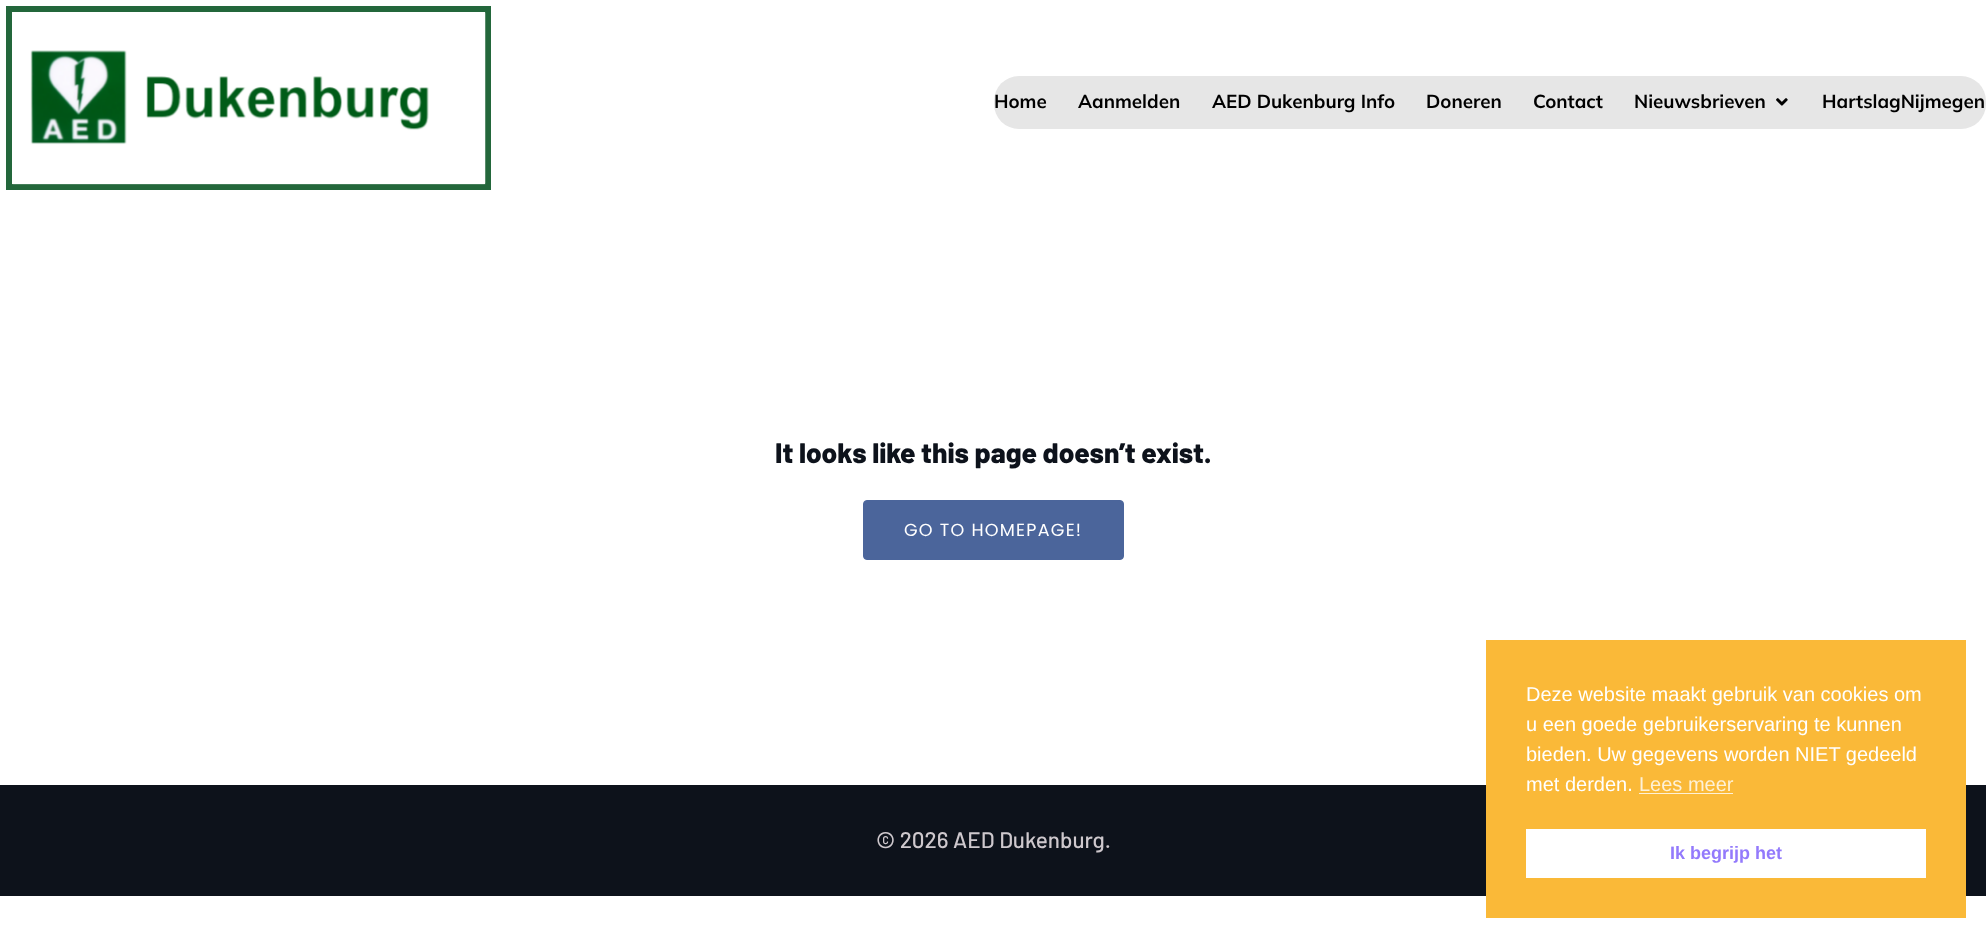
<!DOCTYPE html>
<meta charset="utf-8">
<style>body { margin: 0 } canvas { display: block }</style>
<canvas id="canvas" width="1986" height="937"></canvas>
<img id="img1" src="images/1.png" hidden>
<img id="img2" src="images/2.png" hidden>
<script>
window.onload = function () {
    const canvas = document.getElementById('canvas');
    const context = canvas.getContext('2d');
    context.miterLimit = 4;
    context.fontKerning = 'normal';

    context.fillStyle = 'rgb(255, 255, 255)';
    context.fillRect(0, 0, 1986, 937);
    context.strokeStyle = 'rgb(35, 103, 59)';
    context.lineWidth = 6;
    context.strokeRect(9, 9, 479, 178);
    context.drawImage(document.getElementById('img1'), 12, 12, 474, 173);
    context.fillStyle = 'rgb(230, 230, 230)';
    context.beginPath();
    context.roundRect(994, 76, 992, 53, 25);
    context.fill();
    context.drawImage(document.getElementById('img2'), 1776, 98, 12, 8);
    context.fillStyle = 'rgb(75, 101, 155)';
    context.beginPath();
    context.roundRect(863.5, 500.5, 260, 59, 3.5);
    context.fill();
    context.strokeStyle = 'rgb(75, 101, 155)';
    context.lineWidth = 1;
    context.stroke();
    context.fillStyle = 'rgb(13, 18, 27)';
    context.fillRect(0, 785, 1986, 111);
    context.fillStyle = 'rgb(250, 185, 56)';
    context.fillRect(1486, 640, 480, 278);
    context.fillStyle = 'rgb(254, 241, 215)';
    context.fillRect(1639, 793, 94, 1);
    context.fillStyle = 'rgb(255, 255, 255)';
    context.fillRect(1526, 829, 400, 49);
    context.font = 'bold 18.75px Mulish';
    context.fillStyle = 'rgb(0, 0, 0)';
    context.fillText('Home', 994, 108);
    context.fillText('Aanmelden', 1078, 108);
    context.fillText('AED Dukenburg Info', 1212, 108);
    context.fillText('Doneren', 1426, 108);
    context.fillText('Contact', 1533, 108);
    context.fillText('Nieuwsbrieven', 1634, 108);
    context.fillText('HartslagNijmegen', 1822, 108);
    context.font = '800 28.1px Barlow';
    context.fillStyle = 'rgb(13, 18, 27)';
    context.fillText('It looks like this page doesn’t exist.', 775, 463);
    context.letterSpacing = '1.25px';
    context.font = '17.5px Poppins';
    context.fillStyle = 'rgb(255, 255, 255)';
    context.fillText('GO TO HOMEPAGE!', 904, 536);
    context.letterSpacing = '0px';
    context.font = '500 22.5px Barlow';
    context.fillStyle = 'rgb(206, 200, 205)';
    context.fillText('© 2026 AED Dukenburg.', 876, 848);
    context.font = '20px Liberation Sans';
    context.fillStyle = 'rgb(255, 255, 255)';
    context.fillText('Deze website maakt gebruik van cookies om', 1526, 701);
    context.fillText('u een goede gebruikerservaring te kunnen', 1526, 731);
    context.fillText('bieden. Uw gegevens worden NIET gedeeld', 1526, 761);
    context.fillText('met derden.', 1526, 791);
    context.fillStyle = 'rgb(254, 241, 215)';
    context.fillText('Lees meer', 1639, 791);
    context.font = 'bold 18px Liberation Sans';
    context.fillStyle = 'rgb(147, 122, 252)';
    context.fillText('Ik begrijp het', 1670, 859);
};
</script>
